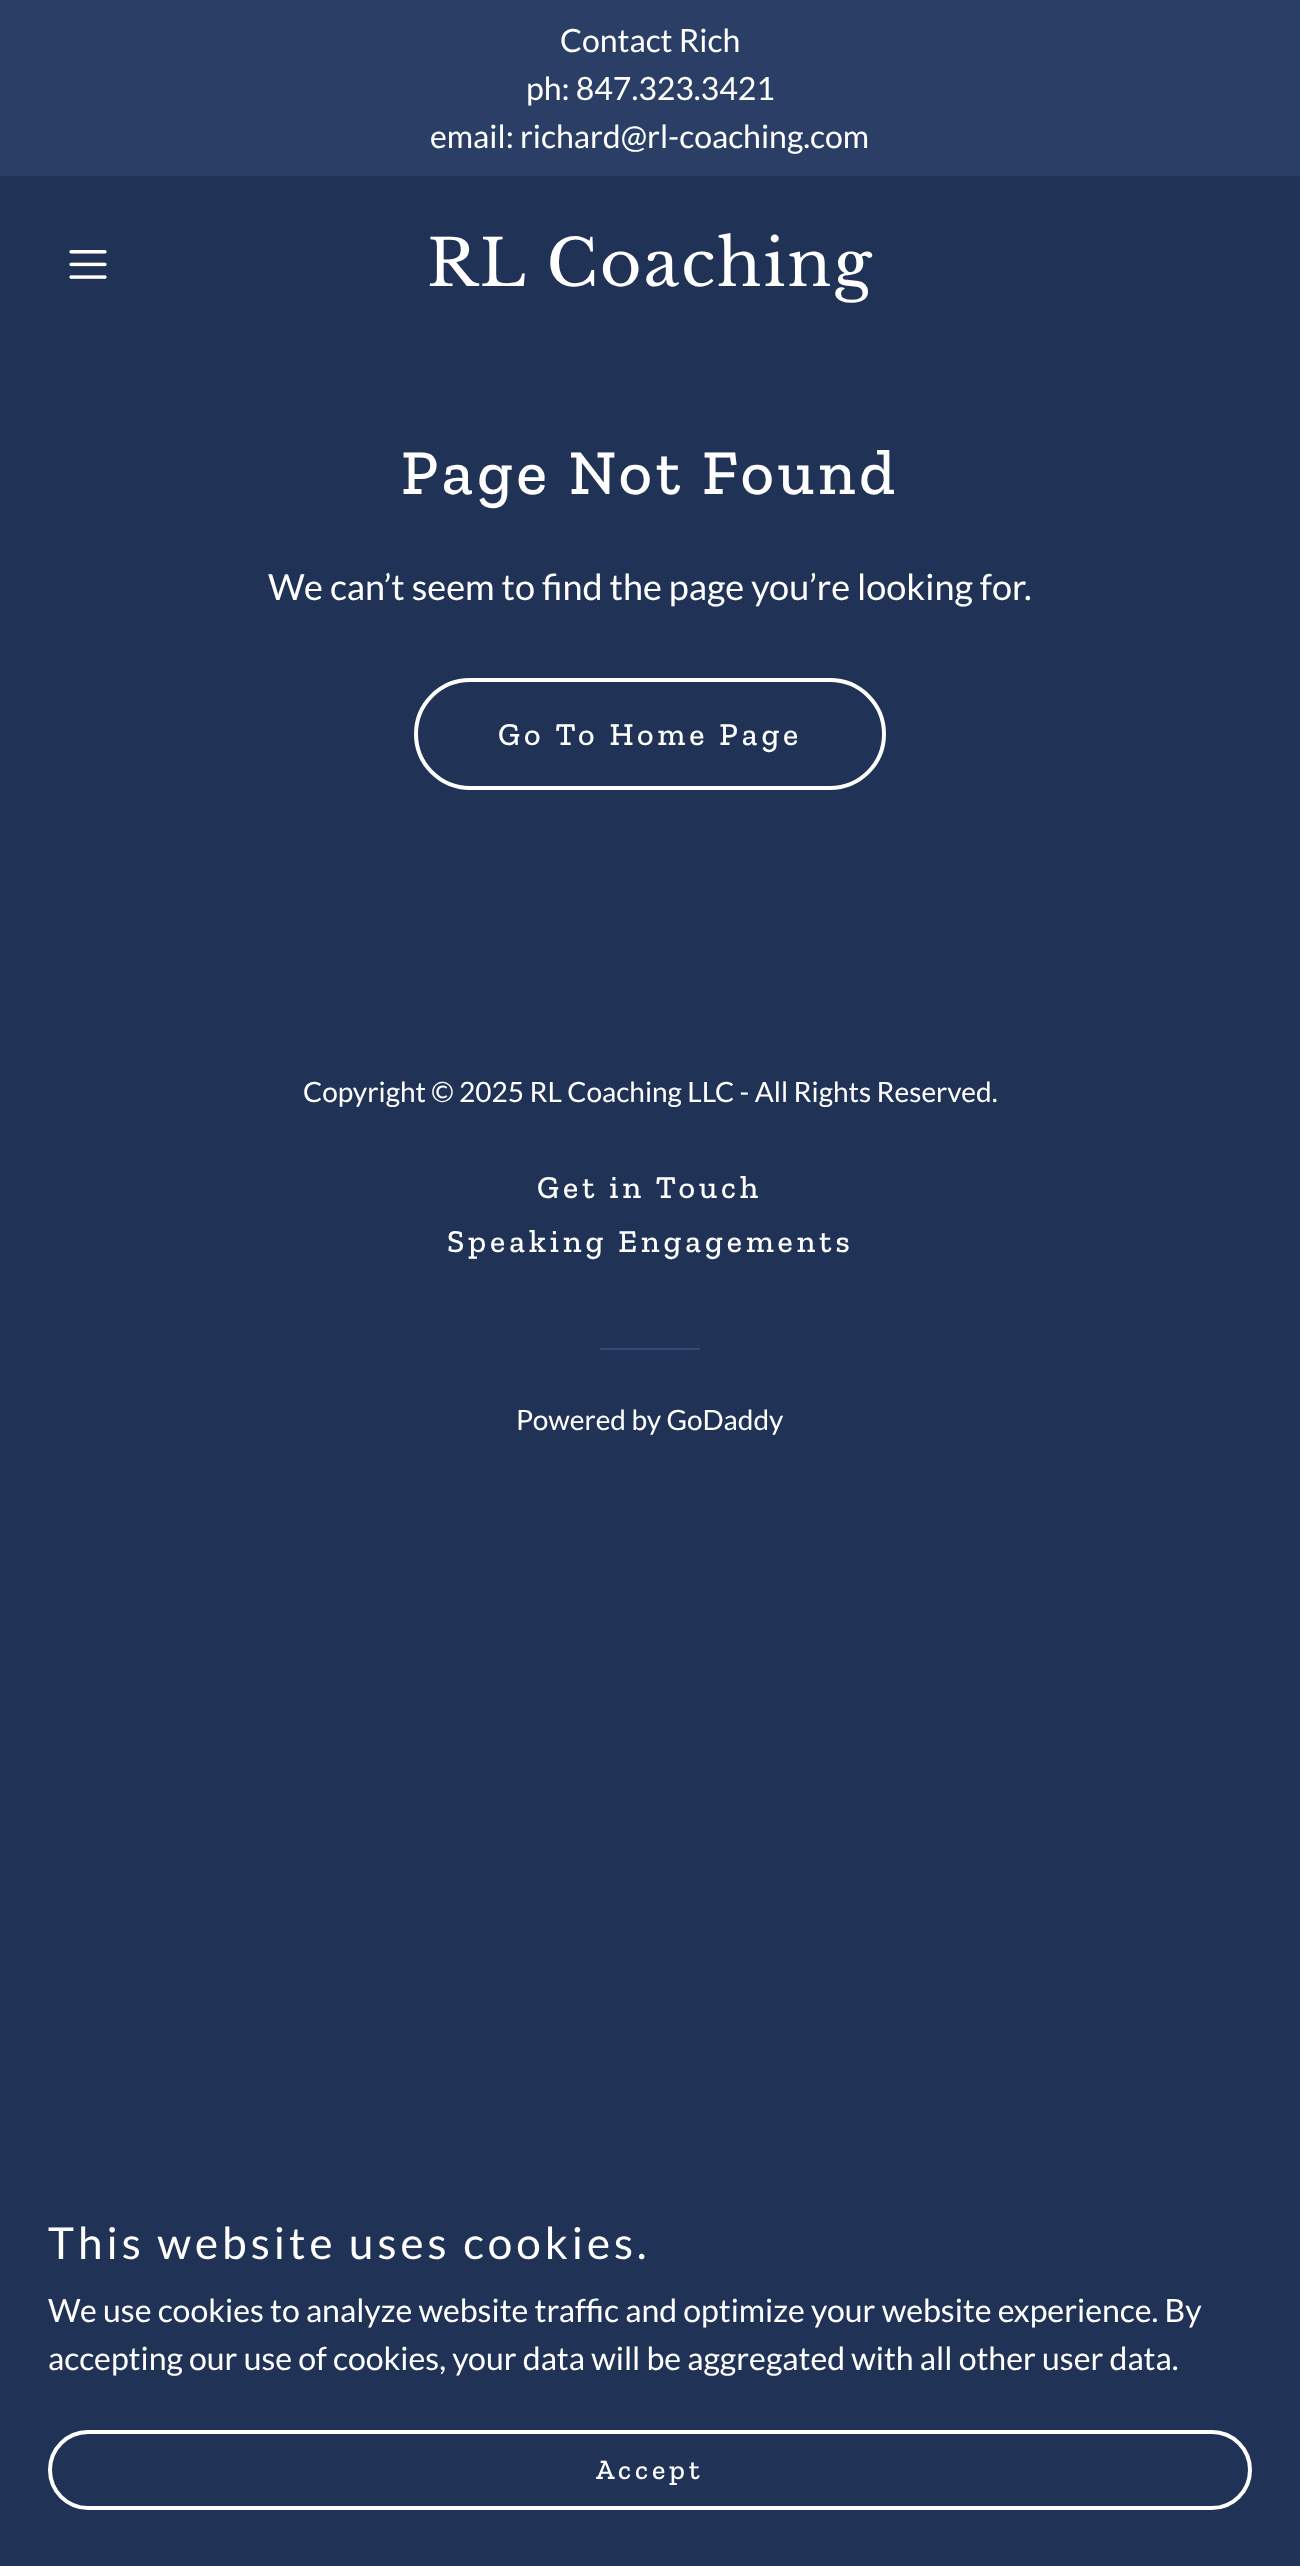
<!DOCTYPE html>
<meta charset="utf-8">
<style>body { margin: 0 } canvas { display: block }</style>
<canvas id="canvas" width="1300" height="2566"></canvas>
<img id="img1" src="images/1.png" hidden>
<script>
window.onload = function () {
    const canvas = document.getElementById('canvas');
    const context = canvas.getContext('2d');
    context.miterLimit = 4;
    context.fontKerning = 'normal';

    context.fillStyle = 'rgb(32, 51, 87)';
    context.fillRect(0, 0, 1300, 2566);
    context.fillStyle = 'rgb(42, 62, 102)';
    context.fillRect(0, 0, 1300, 176);
    context.drawImage(document.getElementById('img1'), 69, 250, 38, 29);
    context.beginPath();
    context.roundRect(416, 680, 468, 108, 54);
    context.strokeStyle = 'rgb(255, 255, 255)';
    context.lineWidth = 4;
    context.stroke();
    context.fillStyle = 'rgb(48, 73, 122)';
    context.fillRect(600, 1348, 100, 2);
    context.beginPath();
    context.roundRect(50, 2432, 1200, 76, 38);
    context.stroke();
    context.font = '32px Lato';
    context.fillStyle = 'rgb(255, 255, 255)';
    context.fillText('Contact Rich', 560, 52);
    context.fillText('ph: 847.323.3421', 526, 100);
    context.fillText('email: richard@rl-coaching.com', 430, 148);
    context.letterSpacing = '2px';
    context.font = '64px Libre Baskerville';
    context.fillText('RL Coaching', 427, 286);
    context.letterSpacing = '4px';
    context.font = '500 64px Zilla Slab';
    context.fillText('Page Not Found', 401, 494);
    context.letterSpacing = '0px';
    context.font = '36px Lato';
    context.fillText('We can’t seem to find the page you’re looking for.', 268, 600);
    context.letterSpacing = '4px';
    context.font = '500 32px Zilla Slab';
    context.fillText('Go To Home Page', 498, 745);
    context.letterSpacing = '0px';
    context.font = '28px Lato';
    context.fillText('Copyright © 2025 RL Coaching LLC - All Rights Reserved.', 303, 1102);
    context.letterSpacing = '4px';
    context.font = '500 32px Zilla Slab';
    context.fillText('Get in Touch', 537, 1198);
    context.fillText('Speaking Engagements', 447, 1252);
    context.letterSpacing = '0px';
    context.font = '28px Lato';
    context.fillText('Powered by GoDaddy', 516, 1430);
    context.letterSpacing = '4px';
    context.font = '44px Lato';
    context.fillText('This website uses cookies.', 48, 2259);
    context.letterSpacing = '0px';
    context.font = '32px Lato';
    context.fillText('We use cookies to analyze website traffic and optimize your website experience. By', 48, 2322);
    context.fillText('accepting our use of cookies, your data will be aggregated with all other user data.', 48, 2370);
    context.letterSpacing = '4px';
    context.font = '500 28px Zilla Slab';
    context.fillText('Accept', 596, 2479);
};
</script>
